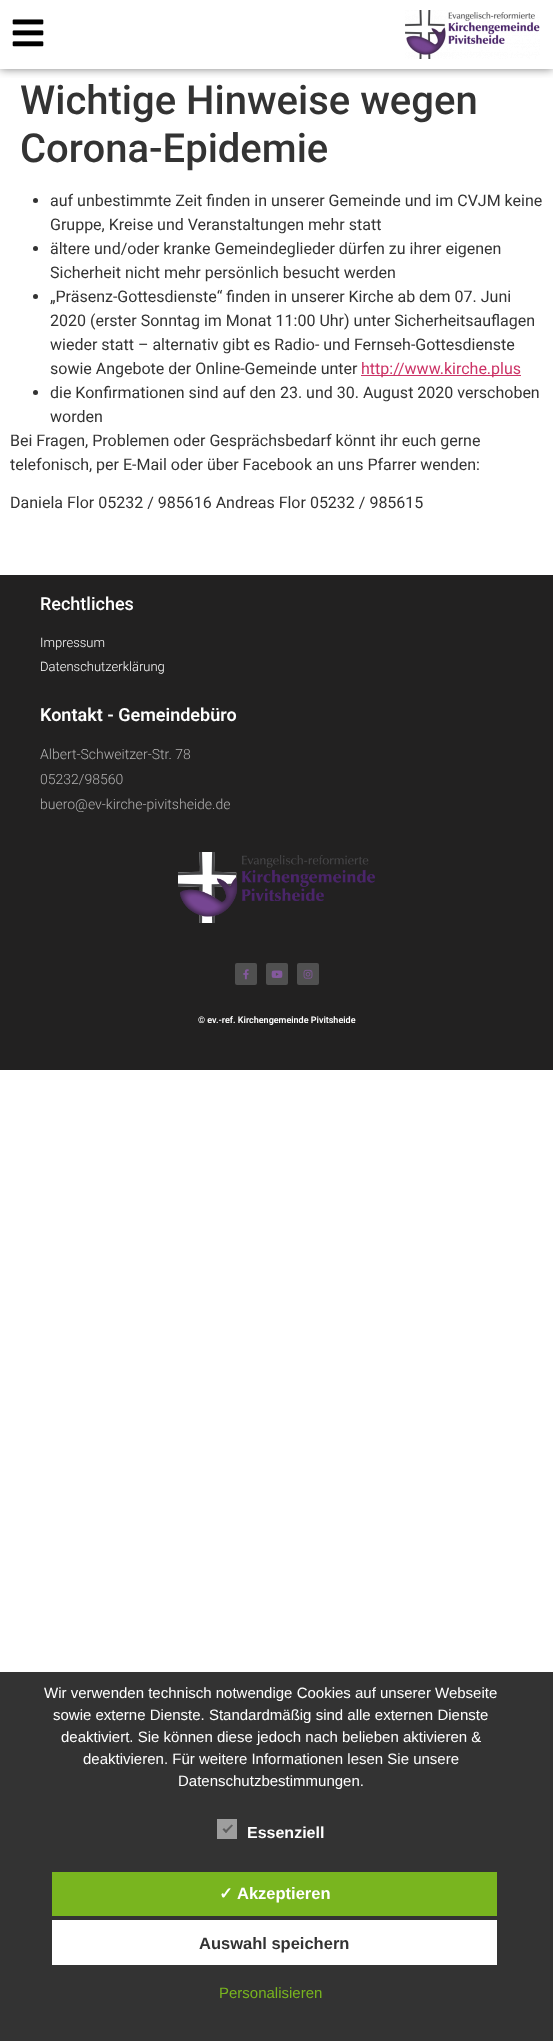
<!DOCTYPE html>
<meta charset="utf-8">
<style>body { margin: 0 } canvas { display: block }</style>
<canvas id="canvas" width="553" height="2041"></canvas>
<img id="img1" src="images/1.png" hidden>
<img id="img2" src="images/2.png" hidden>
<img id="img3" src="images/3.png" hidden>
<img id="img4" src="images/4.png" hidden>
<img id="img5" src="images/5.png" hidden>
<img id="img6" src="images/6.png" hidden>
<script>
window.onload = function () {
    const canvas = document.getElementById('canvas');
    const context = canvas.getContext('2d');
    context.miterLimit = 4;
    context.fontKerning = 'normal';

    context.fillStyle = 'rgb(255, 255, 255)';
    context.fillRect(0, 0, 553, 2041);
    context.save();
    context.beginPath();
    context.rect(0, 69, 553, 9);
    context.clip();
    context.fillStyle = 'rgba(0, 0, 0, 0.5)';
    context.filter = 'blur(5px)';
    context.beginPath();
    context.rect(0, 0, 553, 69);
    context.fill();
    context.filter = 'none';
    context.restore();
    context.drawImage(document.getElementById('img1'), 12, 19, 32, 28);
    context.drawImage(document.getElementById('img2'), 405, 10, 135, 49);
    context.fillStyle = 'rgb(51, 51, 51)';
    context.beginPath();
    context.arc(35.5, 200.5, 2.5, 0, 2 * Math.PI);
    context.fill();
    context.beginPath();
    context.arc(35.5, 248.5, 2.5, 0, 2 * Math.PI);
    context.fill();
    context.beginPath();
    context.arc(35.5, 296.5, 2.5, 0, 2 * Math.PI);
    context.fill();
    context.fillStyle = 'rgb(204, 51, 102)';
    context.fillRect(361, 375, 160, 1);
    context.fillStyle = 'rgb(51, 51, 51)';
    context.beginPath();
    context.arc(35.5, 392.5, 2.5, 0, 2 * Math.PI);
    context.fill();
    context.fillStyle = 'rgb(34, 33, 33)';
    context.fillRect(0, 575, 553, 495);
    context.drawImage(document.getElementById('img3'), 178, 852, 197, 71);
    context.fillStyle = 'rgb(80, 80, 80)';
    context.beginPath();
    context.roundRect(235, 963, 22, 22, 2);
    context.fill();
    context.drawImage(document.getElementById('img4'), 243, 969, 6, 11);
    context.beginPath();
    context.roundRect(266, 963, 22, 22, 2);
    context.fill();
    context.drawImage(document.getElementById('img5'), 271, 970, 12, 8);
    context.beginPath();
    context.roundRect(297, 963, 22, 22, 2);
    context.fill();
    context.drawImage(document.getElementById('img6'), 303, 969, 10, 10);
    context.fillStyle = 'rgb(51, 51, 51)';
    context.fillRect(0, 1672, 553, 369);
    context.fillStyle = 'rgb(158, 158, 158)';
    context.fillRect(217, 1819, 20, 20);
    context.fillStyle = 'rgb(94, 94, 94)';
    context.beginPath();
    context.moveTo(231.5, 1824.5);
    context.lineTo(233, 1825.5);
    context.lineTo(226, 1833);
    context.lineTo(224.5, 1831.5);
    context.closePath();
    context.fill();
    context.beginPath();
    context.moveTo(224, 1828);
    context.lineTo(227.5, 1831.5);
    context.lineTo(226, 1833);
    context.lineTo(222.5, 1829.5);
    context.closePath();
    context.fill();
    context.fillStyle = 'rgb(121, 181, 31)';
    context.fillRect(52, 1872, 445, 44);
    context.fillStyle = 'rgb(255, 255, 255)';
    context.fillRect(52, 1920, 445, 45);
    context.font = '500 40px Roboto';
    context.fillStyle = 'rgb(51, 51, 51)';
    context.fillText('Wichtige Hinweise wegen', 20, 114);
    context.fillText('Corona-Epidemie', 20, 162);
    context.font = '16px Roboto';
    context.fillText('auf unbestimmte Zeit finden in unserer Gemeinde und im CVJM keine', 50, 206);
    context.fillText('Gruppe, Kreise und Veranstaltungen mehr statt', 50, 230);
    context.fillText('ältere und/oder kranke Gemeindeglieder dürfen zu ihrer eigenen', 50, 254);
    context.fillText('Sicherheit nicht mehr persönlich besucht werden', 50, 278);
    context.fillText('„Präsenz-Gottesdienste“ finden in unserer Kirche ab dem 07. Juni', 50, 302);
    context.fillText('2020 (erster Sonntag im Monat 11:00 Uhr) unter Sicherheitsauflagen', 50, 326);
    context.fillText('wieder statt – alternativ gibt es Radio- und Fernseh-Gottesdienste', 50, 350);
    context.fillText('sowie Angebote der Online-Gemeinde unter', 50, 374);
    context.fillStyle = 'rgb(204, 51, 102)';
    context.fillText('http://www.kirche.plus', 361, 374);
    context.fillStyle = 'rgb(51, 51, 51)';
    context.fillText('die Konfirmationen sind auf den 23. und 30. August 2020 verschoben', 50, 398);
    context.fillText('worden', 50, 422);
    context.fillText('Bei Fragen, Problemen oder Gesprächsbedarf könnt ihr euch gerne', 10, 446);
    context.fillText('telefonisch, per E-Mail oder über Facebook an uns Pfarrer wenden:', 10, 470);
    context.fillText('Daniela Flor 05232 / 985616 Andreas Flor 05232 / 985615', 10, 508);
    context.font = '500 18px Roboto';
    context.fillStyle = 'rgb(255, 255, 255)';
    context.fillText('Rechtliches', 40, 610);
    context.font = '300 13px Roboto';
    context.fillText('Impressum', 40, 647);
    context.fillText('Datenschutzerklärung', 40, 671);
    context.font = '600 18px Roboto';
    context.fillText('Kontakt - Gemeindebüro', 40, 721);
    context.font = '300 14px Roboto';
    context.fillStyle = 'rgb(178, 177, 177)';
    context.fillText('Albert-Schweitzer-Str. 78', 40, 759);
    context.fillText('05232/98560', 40, 784);
    context.fillText('buero@ev-kirche-pivitsheide.de', 40, 809);
    context.font = '600 9px Roboto';
    context.fillStyle = 'rgb(255, 255, 255)';
    context.fillText('© ev.-ref. Kirchengemeinde Pivitsheide', 198, 1023);
    context.font = '15px Liberation Sans';
    context.fillText('Wir verwenden technisch notwendige Cookies auf unserer Webseite', 44, 1698);
    context.fillText('sowie externe Dienste. Standardmäßig sind alle externen Dienste', 53, 1720);
    context.fillText('deaktiviert. Sie können diese jedoch nach belieben aktivieren &', 61, 1742);
    context.fillText('deaktivieren. Für weitere Informationen lesen Sie unsere', 83, 1764);
    context.fillText('Datenschutzbestimmungen.', 178, 1786);
    context.font = 'bold 16px Liberation Sans';
    context.fillText('Essenziell', 247, 1838);
    context.font = 'bold 16.5px DejaVu Sans';
    context.fillText('✓', 219, 1899);
    context.font = 'bold 16.5px Liberation Sans';
    context.fillText('Akzeptieren', 237, 1899);
    context.fillStyle = 'rgb(51, 51, 51)';
    context.fillText('Auswahl speichern', 199, 1949);
    context.font = '15px Liberation Sans';
    context.fillStyle = 'rgb(121, 181, 31)';
    context.fillText('Personalisieren', 219, 1998);
};
</script>
